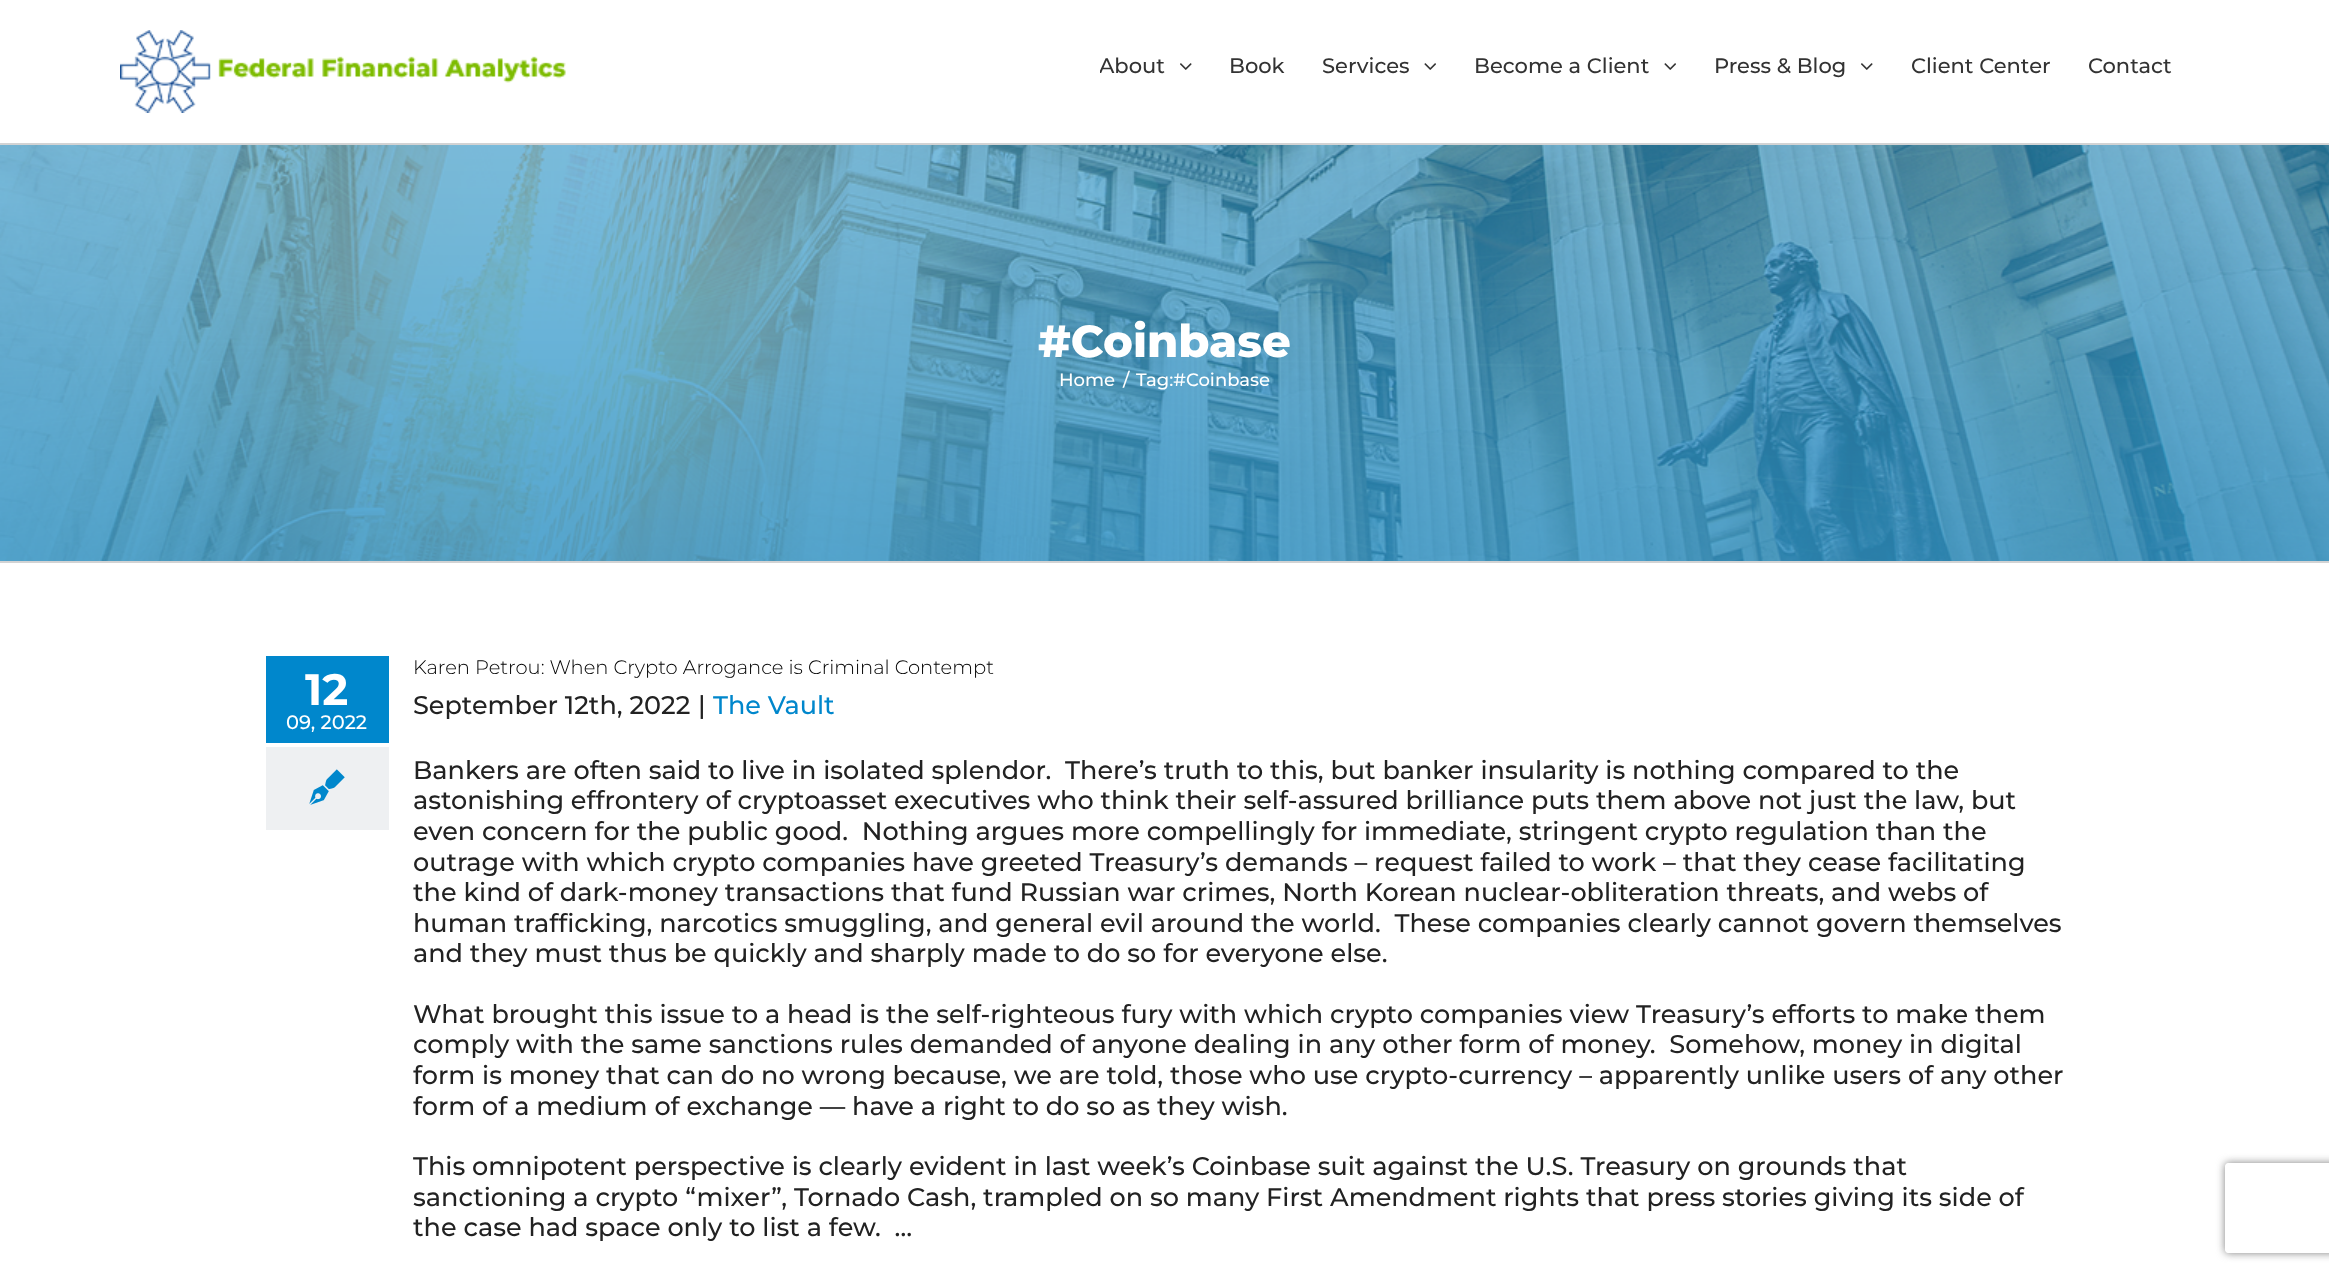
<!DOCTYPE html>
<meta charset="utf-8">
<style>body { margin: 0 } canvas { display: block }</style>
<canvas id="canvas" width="2329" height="1273"></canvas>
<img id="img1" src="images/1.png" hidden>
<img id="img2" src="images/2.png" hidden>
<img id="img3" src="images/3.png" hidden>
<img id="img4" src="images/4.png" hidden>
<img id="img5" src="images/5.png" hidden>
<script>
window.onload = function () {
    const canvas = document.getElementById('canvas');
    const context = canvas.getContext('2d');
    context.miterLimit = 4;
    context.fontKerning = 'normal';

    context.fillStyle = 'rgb(255, 255, 255)';
    context.fillRect(0, 0, 2329, 1273);
    context.drawImage(document.getElementById('img1'), 120, 30, 446, 83);
    context.drawImage(document.getElementById('img2'), 1180, 63, 12, 7);
    context.drawImage(document.getElementById('img3'), 1424, 63, 12, 7);
    context.drawImage(document.getElementById('img3'), 1664, 63, 12, 7);
    context.drawImage(document.getElementById('img2'), 1861, 63, 12, 7);
    context.drawImage(document.getElementById('img4'), 0, 145, 2329, 416);
    context.fillStyle = 'rgb(210, 211, 212)';
    context.fillRect(0, 143, 2329, 2);
    context.fillRect(0, 561, 2329, 2);
    context.fillStyle = 'rgb(0, 135, 204)';
    context.fillRect(266, 656, 123, 87);
    context.fillStyle = 'rgb(238, 240, 242)';
    context.fillRect(266, 747, 123, 83);
    context.drawImage(document.getElementById('img5'), 309, 769, 36, 36);
    context.save();
    context.beginPath();
    context.moveTo(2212, 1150);
    context.lineTo(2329, 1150);
    context.lineTo(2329, 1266);
    context.lineTo(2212, 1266);
    context.closePath();
    context.moveTo(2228, 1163);
    context.lineTo(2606, 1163);
    context.bezierCurveTo(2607.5, 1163, 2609, 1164.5, 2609, 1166);
    context.lineTo(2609, 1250);
    context.bezierCurveTo(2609, 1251.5, 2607.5, 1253, 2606, 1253);
    context.lineTo(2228, 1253);
    context.bezierCurveTo(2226.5, 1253, 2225, 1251.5, 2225, 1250);
    context.lineTo(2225, 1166);
    context.bezierCurveTo(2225, 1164.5, 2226.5, 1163, 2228, 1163);
    context.closePath();
    context.clip('evenodd');
    context.fillStyle = 'rgb(128, 128, 128)';
    context.filter = 'blur(4px)';
    context.beginPath();
    context.roundRect(2225, 1163, 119, 90, 3);
    context.fill();
    context.filter = 'none';
    context.restore();
    context.save();
    context.beginPath();
    context.rect(1100, 0, 130, 126);
    context.clip();
    context.font = '500 21px Montserrat';
    context.fillStyle = 'rgb(51, 51, 51)';
    context.fillText('About', 1099, 73);
    context.restore();
    context.font = '500 21px Montserrat';
    context.fillStyle = 'rgb(51, 51, 51)';
    context.fillText('Book', 1229, 73);
    context.fillText('Services', 1322, 73);
    context.fillText('Become a Client', 1474, 73);
    context.fillText('Press & Blog', 1714, 73);
    context.fillText('Client Center', 1911, 73);
    context.fillText('Contact', 2088, 73);
    context.font = '800 45px Montserrat';
    context.fillStyle = 'rgb(255, 255, 255)';
    context.fillText('#Coinbase', 1038, 357);
    context.font = '500 18px Montserrat';
    context.fillText('Home', 1059, 386);
    context.fillText('/', 1123, 386);
    context.fillText('Tag:#Coinbase', 1136, 386);
    context.font = 'bold 44px Montserrat';
    context.fillText('12', 305, 705);
    context.font = '500 19.5px Montserrat';
    context.fillText('09, 2022', 286, 729);
    context.font = '300 19.5px Montserrat';
    context.fillStyle = 'rgb(0, 0, 0)';
    context.fillText('Karen Petrou: When Crypto Arrogance is Criminal Contempt', 413, 674);
    context.font = '500 25.5px Montserrat';
    context.fillStyle = 'rgb(34, 34, 34)';
    context.fillText('September 12th, 2022', 413, 714);
    context.fillText('|', 698, 714);
    context.fillStyle = 'rgb(0, 135, 204)';
    context.fillText('The Vault', 713, 714);
    context.fillStyle = 'rgb(34, 34, 34)';
    context.fillText('Bankers are often said to live in isolated splendor.  There’s truth to this, but banker insularity is nothing compared to the', 413, 779);
    context.fillText('astonishing effrontery of cryptoasset executives who think their self-assured brilliance puts them above not just the law, but', 413, 809);
    context.fillText('even concern for the public good.  Nothing argues more compellingly for immediate, stringent crypto regulation than the', 413, 840);
    context.fillText('outrage with which crypto companies have greeted Treasury’s demands – request failed to work – that they cease facilitating', 413, 871);
    context.fillText('the kind of dark-money transactions that fund Russian war crimes, North Korean nuclear-obliteration threats, and webs of', 413, 901);
    context.fillText('human trafficking, narcotics smuggling, and general evil around the world.  These companies clearly cannot govern themselves', 413, 932);
    context.fillText('and they must thus be quickly and sharply made to do so for everyone else.', 413, 962);
    context.fillText('What brought this issue to a head is the self-righteous fury with which crypto companies view Treasury’s efforts to make them', 413, 1023);
    context.fillText('comply with the same sanctions rules demanded of anyone dealing in any other form of money.  Somehow, money in digital', 413, 1053);
    context.fillText('form is money that can do no wrong because, we are told, those who use crypto-currency – apparently unlike users of any other', 413, 1084);
    context.fillText('form of a medium of exchange — have a right to do so as they wish.', 413, 1115);
    context.fillText('This omnipotent perspective is clearly evident in last week’s Coinbase suit against the U.S. Treasury on grounds that', 413, 1175);
    context.fillText('sanctioning a crypto “mixer”, Tornado Cash, trampled on so many First Amendment rights that press stories giving its side of', 413, 1206);
    context.fillText('the case had space only to list a few.  …', 413, 1236);
};
</script>
